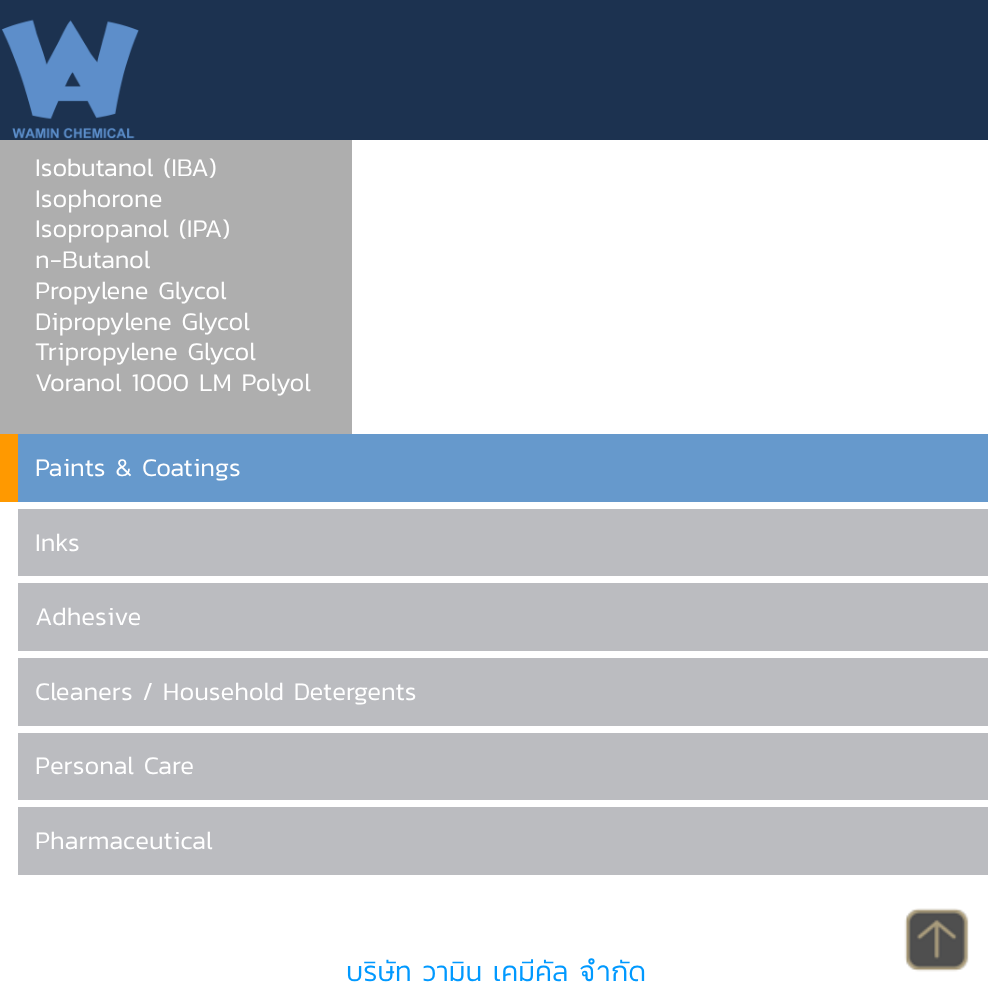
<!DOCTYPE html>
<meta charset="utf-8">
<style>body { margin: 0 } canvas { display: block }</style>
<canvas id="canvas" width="988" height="992"></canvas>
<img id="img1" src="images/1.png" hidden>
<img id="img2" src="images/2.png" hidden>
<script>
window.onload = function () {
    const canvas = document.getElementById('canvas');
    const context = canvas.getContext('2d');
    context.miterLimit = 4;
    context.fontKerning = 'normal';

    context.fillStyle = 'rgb(255, 255, 255)';
    context.fillRect(0, 0, 988, 992);
    context.fillStyle = 'rgb(28, 50, 80)';
    context.fillRect(0, 0, 988, 140);
    context.drawImage(document.getElementById('img1'), 1, 19, 138, 120);
    context.fillStyle = 'rgb(174, 174, 174)';
    context.fillRect(0, 140, 352, 294);
    context.fillStyle = 'rgb(255, 153, 0)';
    context.fillRect(0, 434, 18, 68);
    context.fillStyle = 'rgb(102, 153, 204)';
    context.fillRect(18, 434, 970, 68);
    context.fillStyle = 'rgb(187, 188, 192)';
    context.fillRect(18, 509, 970, 67);
    context.fillRect(18, 583, 970, 68);
    context.fillRect(18, 658, 970, 68);
    context.fillRect(18, 733, 970, 67);
    context.fillRect(18, 807, 970, 68);
    context.drawImage(document.getElementById('img2'), 904, 908, 65, 64);
    context.font = '300 25.7px Kanit';
    context.fillStyle = 'rgb(255, 255, 255)';
    context.fillText('Isobutanol (IBA)', 35, 176);
    context.fillText('Isophorone', 35, 207);
    context.fillText('Isopropanol (IPA)', 35, 237);
    context.fillText('n-Butanol', 35, 268);
    context.fillText('Propylene Glycol', 35, 299);
    context.fillText('Dipropylene Glycol', 35, 330);
    context.fillText('Tripropylene Glycol', 35, 360);
    context.fillText('Voranol 1000 LM Polyol', 35, 391);
    context.fillText('Paints & Coatings', 35, 476);
    context.fillText('Inks', 35, 551);
    context.fillText('Adhesive', 35, 625);
    context.fillText('Cleaners / Household Detergents', 35, 700);
    context.fillText('Personal Care', 35, 774);
    context.fillText('Pharmaceutical', 35, 849);
    context.font = '300 28px Kanit';
    context.fillStyle = 'rgb(0, 153, 255)';
    context.fillText('บริษัท วามิน เคมีคัล จำกัด', 346, 981);
};
</script>
